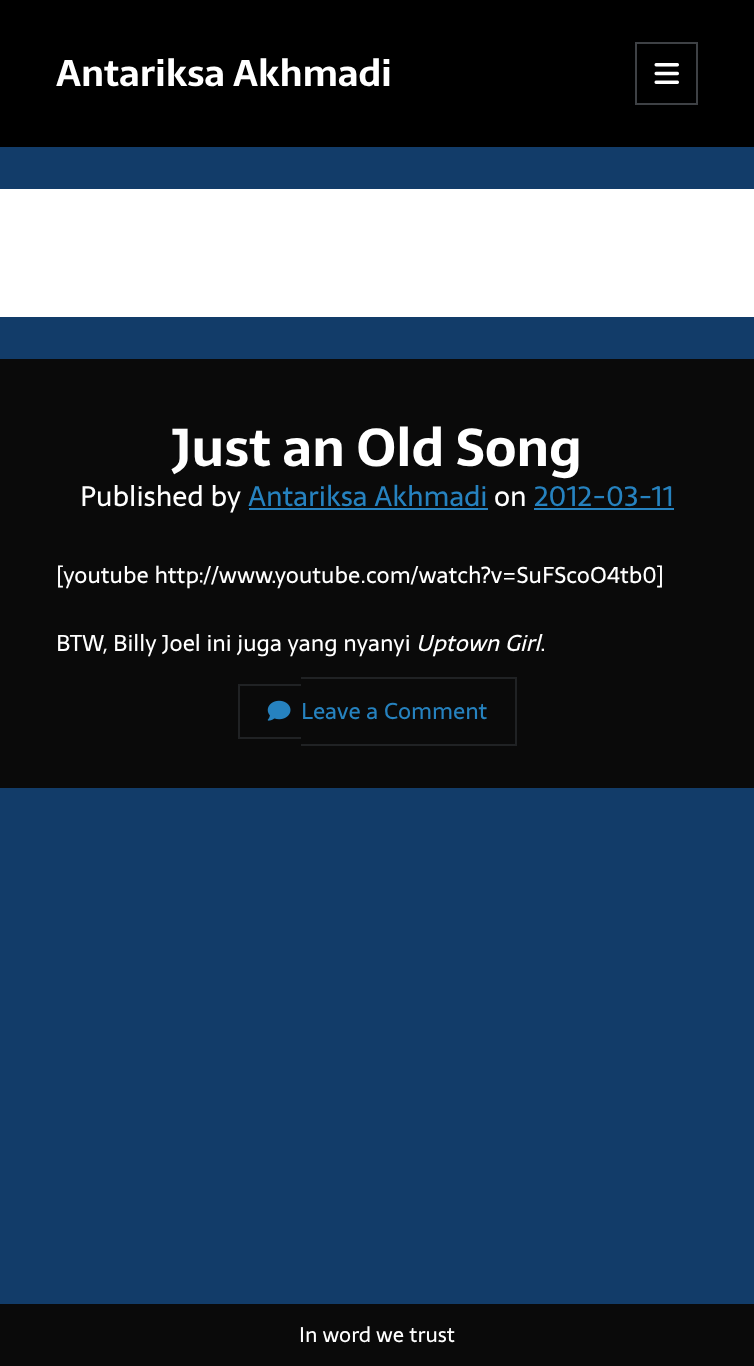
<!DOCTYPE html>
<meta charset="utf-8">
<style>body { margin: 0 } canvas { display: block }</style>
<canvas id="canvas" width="754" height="1366"></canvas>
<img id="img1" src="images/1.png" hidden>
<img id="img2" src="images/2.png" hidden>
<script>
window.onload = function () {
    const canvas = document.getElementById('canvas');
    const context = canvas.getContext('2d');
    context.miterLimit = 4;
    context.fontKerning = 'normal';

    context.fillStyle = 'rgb(0, 0, 0)';
    context.fillRect(0, 0, 754, 1366);
    context.strokeStyle = 'rgb(62, 65, 69)';
    context.lineWidth = 2;
    context.strokeRect(636, 43, 61, 61);
    context.drawImage(document.getElementById('img1'), 654, 63, 25, 21);
    context.fillStyle = 'rgb(18, 60, 105)';
    context.fillRect(0, 147, 754, 1157);
    context.fillStyle = 'rgb(255, 255, 255)';
    context.fillRect(0, 189, 754, 128);
    context.fillStyle = 'rgb(10, 10, 10)';
    context.fillRect(0, 359, 754, 429);
    context.fillStyle = 'rgb(38, 130, 191)';
    context.fillRect(249, 508, 239, 2);
    context.fillRect(534, 508, 140, 2);
    context.fillStyle = 'rgb(32, 34, 36)';
    context.fillRect(238, 684, 63, 2);
    context.fillRect(238, 737, 63, 2);
    context.fillRect(238, 684, 2, 55);
    context.fillRect(301, 677, 215, 2);
    context.fillRect(515, 677, 2, 69);
    context.fillRect(301, 744, 215, 2);
    context.drawImage(document.getElementById('img2'), 267, 700, 24, 21);
    context.fillStyle = 'rgb(10, 10, 10)';
    context.fillRect(0, 1304, 754, 62);
    context.font = 'bold 36.75px Sarala';
    context.fillStyle = 'rgb(255, 255, 255)';
    context.fillText('Antariksa Akhmadi', 56, 86);
    context.font = 'bold 52.5px Sarala';
    context.fillText('Just an Old Song', 172, 466);
    context.font = '28px Sarala';
    context.fillText('Published by', 80, 506);
    context.fillStyle = 'rgb(38, 130, 191)';
    context.fillText('Antariksa Akhmadi', 248, 506);
    context.fillStyle = 'rgb(255, 255, 255)';
    context.fillText('on', 494, 506);
    context.fillStyle = 'rgb(38, 130, 191)';
    context.fillText('2012-03-11', 534, 506);
    context.font = '22.75px Sarala';
    context.fillStyle = 'rgb(255, 255, 255)';
    context.fillText('[youtube http://www.youtube.com/watch?v=SuFScoO4tb0]', 56, 583);
    context.fillText('BTW, Billy Joel ini juga yang nyanyi', 56, 651);
    context.font = 'italic 22.75px Sarala';
    context.fillText('Uptown Girl', 416, 651);
    context.font = '22.75px Sarala';
    context.fillText('.', 540, 651);
    context.fillStyle = 'rgb(38, 130, 191)';
    context.fillText('Leave a Comment', 301, 719);
    context.font = '21px Sarala';
    context.fillStyle = 'rgb(255, 255, 255)';
    context.fillText('In word we trust', 299, 1342);
};
</script>
